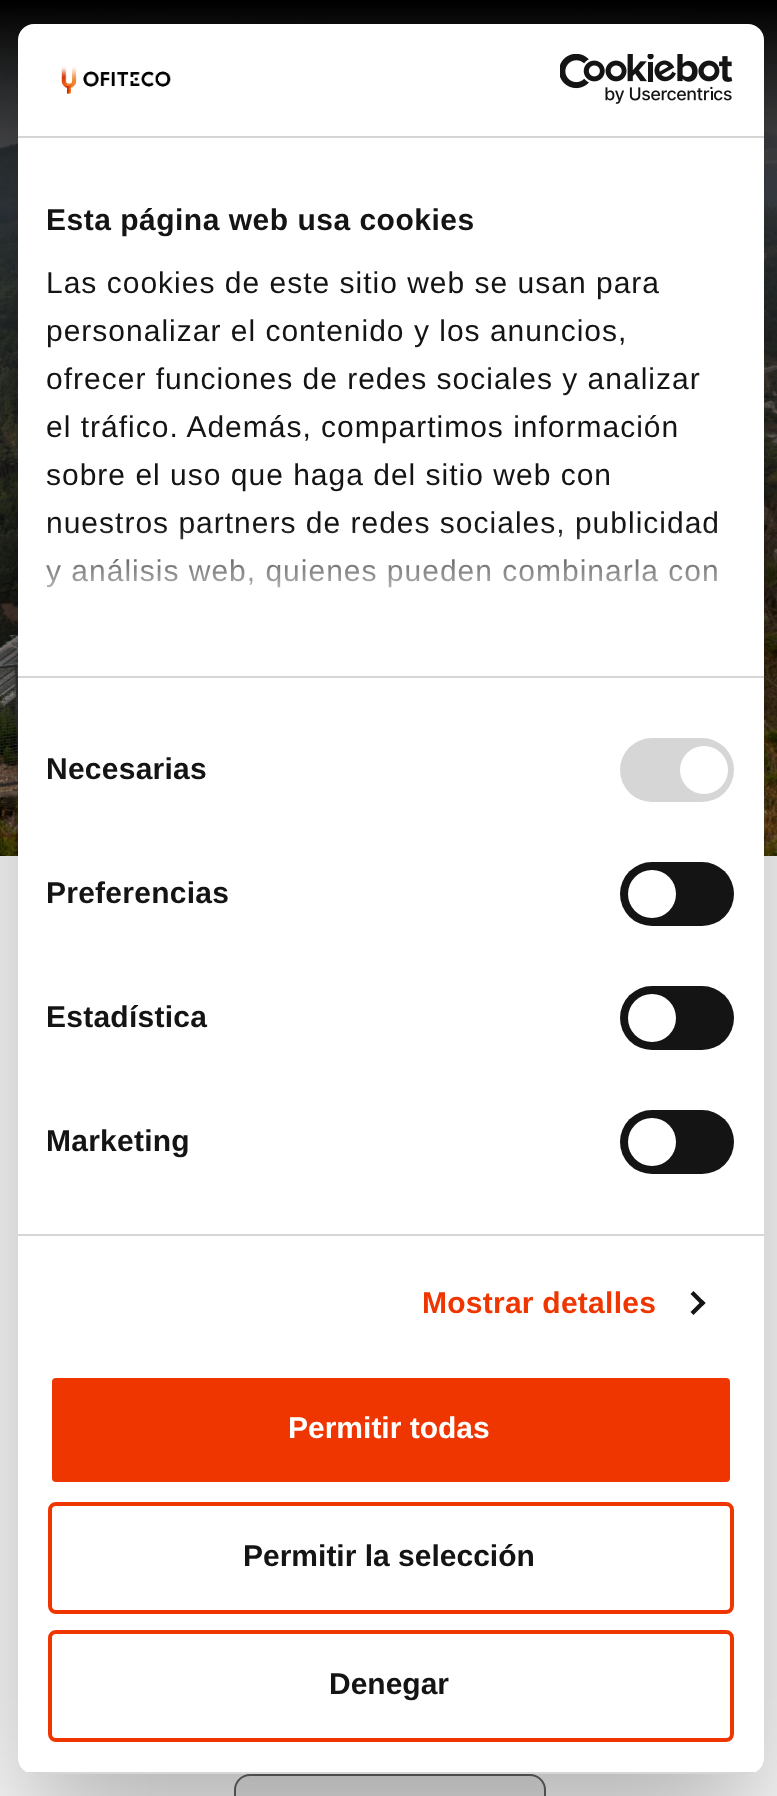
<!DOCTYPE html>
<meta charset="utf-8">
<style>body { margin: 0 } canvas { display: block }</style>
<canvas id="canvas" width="777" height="1796"></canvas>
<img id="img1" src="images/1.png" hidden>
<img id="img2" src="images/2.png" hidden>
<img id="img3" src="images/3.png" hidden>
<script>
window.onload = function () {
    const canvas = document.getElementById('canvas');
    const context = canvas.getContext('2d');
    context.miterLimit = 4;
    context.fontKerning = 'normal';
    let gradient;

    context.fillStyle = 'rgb(255, 255, 255)';
    context.fillRect(0, 0, 777, 1796);
    context.drawImage(document.getElementById('img1'), 0, 0, 777, 856);
    context.fillStyle = 'rgb(239, 239, 239)';
    context.beginPath();
    context.roundRect(235, 1775, 310, 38, 15);
    context.fill();
    context.strokeStyle = 'rgb(102, 102, 102)';
    context.lineWidth = 2;
    context.stroke();
    context.fillStyle = 'rgba(0, 0, 0, 0.3)';
    context.filter = 'blur(68px)';
    context.beginPath();
    context.roundRect(18, 88, 746, 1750, 16);
    context.fill();
    context.filter = 'none';
    context.fillStyle = 'rgb(255, 255, 255)';
    context.beginPath();
    context.roundRect(18, 24, 746, 1750, 16);
    context.fill();
    context.fillStyle = 'rgb(214, 214, 214)';
    context.fillRect(18, 136, 746, 2);
    context.drawImage(document.getElementById('img2'), 61, 66, 110, 28);
    context.drawImage(document.getElementById('img3'), 560, 54, 173, 50);
    context.fillRect(18, 676, 746, 2);
    context.fillRect(18, 1234, 746, 2);
    context.beginPath();
    context.roundRect(620, 738, 114, 64, 32);
    context.fill();
    context.fillStyle = 'rgb(255, 255, 255)';
    context.beginPath();
    context.arc(704, 770, 24, 0, 2 * Math.PI);
    context.fill();
    context.fillStyle = 'rgb(20, 20, 20)';
    context.beginPath();
    context.roundRect(620, 862, 114, 64, 32);
    context.fill();
    context.fillStyle = 'rgb(255, 255, 255)';
    context.beginPath();
    context.arc(652, 894, 24, 0, 2 * Math.PI);
    context.fill();
    context.fillStyle = 'rgb(20, 20, 20)';
    context.beginPath();
    context.roundRect(620, 986, 114, 64, 32);
    context.fill();
    context.fillStyle = 'rgb(255, 255, 255)';
    context.beginPath();
    context.arc(652, 1018, 24, 0, 2 * Math.PI);
    context.fill();
    context.fillStyle = 'rgb(20, 20, 20)';
    context.beginPath();
    context.roundRect(620, 1110, 114, 64, 32);
    context.fill();
    context.fillStyle = 'rgb(255, 255, 255)';
    context.beginPath();
    context.arc(652, 1142, 24, 0, 2 * Math.PI);
    context.fill();
    context.fillStyle = 'rgb(20, 20, 20)';
    context.beginPath();
    context.moveTo(693.5, 1291);
    context.lineTo(705.5, 1303);
    context.lineTo(702.5, 1306);
    context.lineTo(690.5, 1294);
    context.closePath();
    context.fill();
    context.beginPath();
    context.moveTo(702.5, 1300);
    context.lineTo(705.5, 1303);
    context.lineTo(693.5, 1315);
    context.lineTo(690.5, 1312);
    context.closePath();
    context.fill();
    context.save();
    context.beginPath();
    context.roundRect(18, 24, 746, 1750, 16);
    context.clip();
    context.fillStyle = 'rgb(214, 214, 214)';
    context.fillRect(18, 1772, 746, 2);
    context.restore();
    context.fillStyle = 'rgb(239, 54, 0)';
    context.beginPath();
    context.roundRect(50, 1376, 682, 108, 6);
    context.fill();
    context.strokeStyle = 'rgb(255, 255, 255)';
    context.lineWidth = 4;
    context.stroke();
    context.beginPath();
    context.roundRect(50, 1504, 682, 108, 6);
    context.strokeStyle = 'rgb(239, 54, 0)';
    context.stroke();
    context.beginPath();
    context.roundRect(50, 1632, 682, 108, 6);
    context.stroke();
    context.letterSpacing = '0.5px';
    context.font = 'bold 30px Liberation Sans';
    context.fillStyle = 'rgb(20, 20, 20)';
    context.fillText('Esta página web usa cookies', 46, 230);
    context.letterSpacing = '1px';
    context.font = '30px Liberation Sans';
    context.fillText('Las cookies de este sitio web se usan para', 46, 293);
    context.fillText('personalizar el contenido y los anuncios,', 46, 341);
    context.fillText('ofrecer funciones de redes sociales y analizar', 46, 389);
    context.fillText('el tráfico. Además, compartimos información', 46, 437);
    context.fillText('sobre el uso que haga del sitio web con', 46, 485);
    context.fillText('nuestros partners de redes sociales, publicidad', 46, 533);
    context.fillText('y análisis web, quienes pueden combinarla con', 46, 581);
    gradient = context.createLinearGradient(377, 675, 377, 525);
    gradient.addColorStop(0, 'rgb(255, 255, 255)');
    gradient.addColorStop(0.5, 'rgba(255, 255, 255, 0.8)');
    gradient.addColorStop(1, 'rgba(255, 255, 255, 0)');
    context.fillStyle = gradient;
    context.fillRect(46, 527, 671, 61);
    context.letterSpacing = '0.25px';
    context.font = 'bold 30px Liberation Sans';
    context.fillStyle = 'rgb(20, 20, 20)';
    context.fillText('Necesarias', 46, 779);
    context.fillText('Preferencias', 46, 903);
    context.fillText('Estadística', 46, 1027);
    context.fillText('Marketing', 46, 1151);
    context.fillStyle = 'rgb(239, 54, 0)';
    context.fillText('Mostrar detalles', 422, 1313);
    context.letterSpacing = '0px';
    context.fillStyle = 'rgb(255, 255, 255)';
    context.fillText('Permitir todas', 288, 1438);
    context.fillStyle = 'rgb(20, 20, 20)';
    context.fillText('Permitir la selección', 243, 1566);
    context.fillText('Denegar', 329, 1694);
};
</script>
